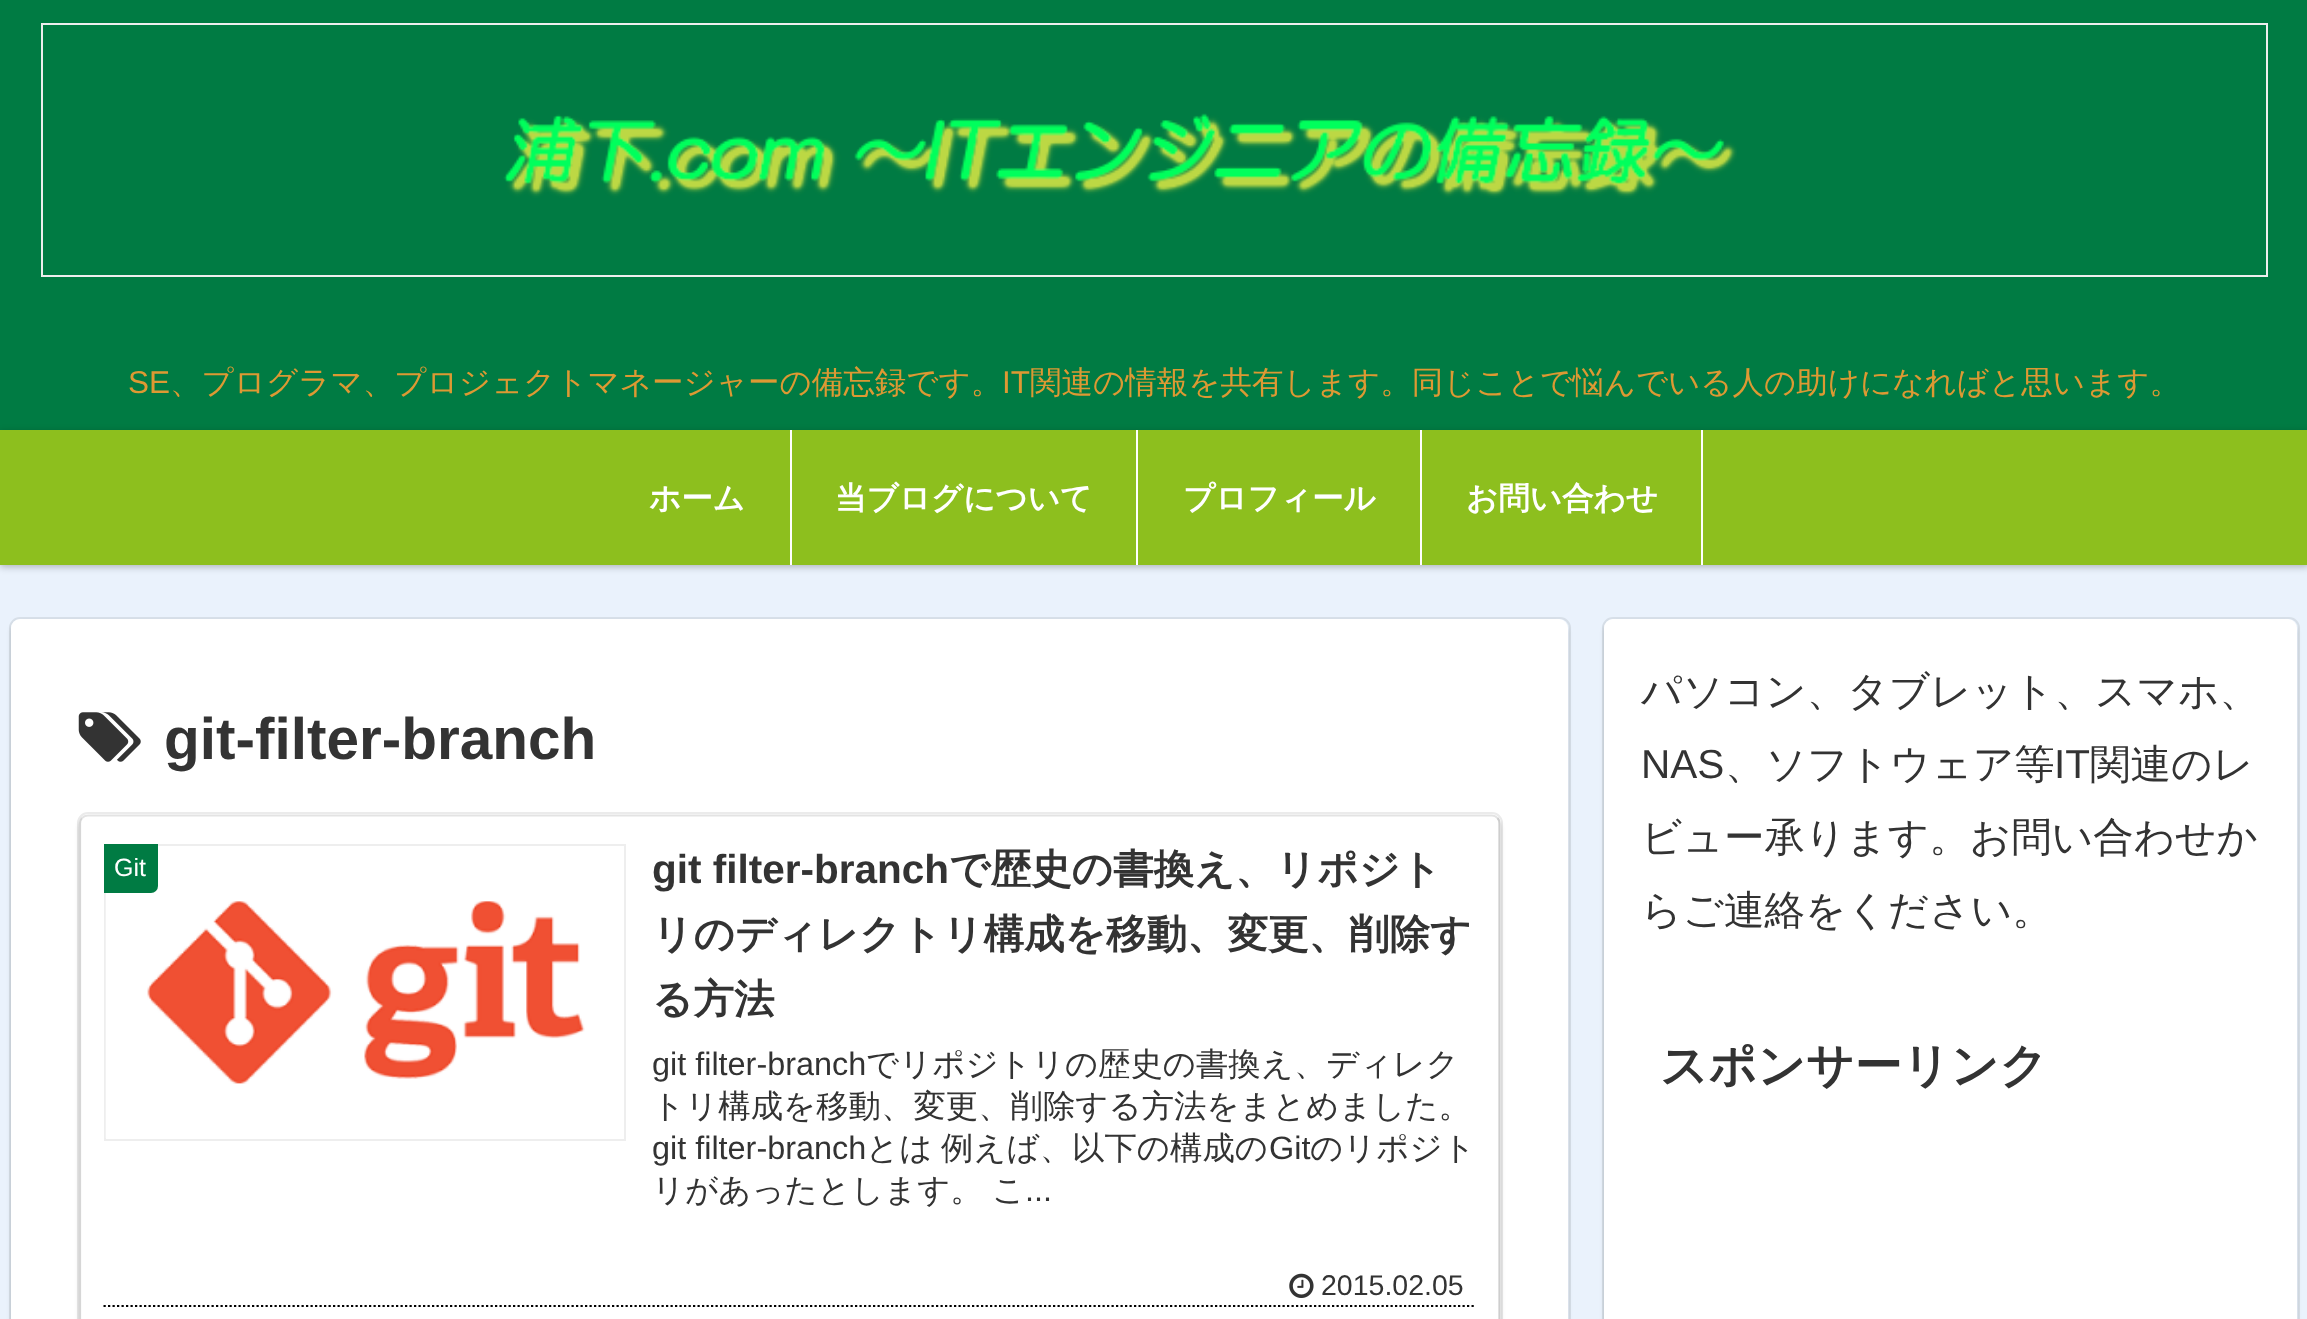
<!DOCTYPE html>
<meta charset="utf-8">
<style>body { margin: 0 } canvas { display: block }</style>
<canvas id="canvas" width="2307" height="1319"></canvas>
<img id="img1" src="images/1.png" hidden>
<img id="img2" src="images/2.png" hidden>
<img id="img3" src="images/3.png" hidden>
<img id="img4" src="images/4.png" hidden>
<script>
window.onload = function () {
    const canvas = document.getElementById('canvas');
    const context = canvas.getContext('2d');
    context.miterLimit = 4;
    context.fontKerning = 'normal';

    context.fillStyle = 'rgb(234, 242, 252)';
    context.fillRect(0, 0, 2307, 1319);
    context.fillStyle = 'rgb(0, 123, 67)';
    context.fillRect(0, 0, 2307, 430);
    context.strokeStyle = 'rgb(238, 238, 238)';
    context.lineWidth = 2;
    context.strokeRect(42, 24, 2225, 252);
    context.drawImage(document.getElementById('img1'), 503, 113, 1234, 85);
    context.fillStyle = 'rgba(0, 0, 0, 0.25)';
    context.filter = 'blur(3.5px)';
    context.beginPath();
    context.rect(0, 432, 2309, 135);
    context.fill();
    context.filter = 'none';
    context.fillStyle = 'rgb(141, 191, 30)';
    context.fillRect(0, 430, 2307, 135);
    context.fillStyle = 'rgb(255, 255, 255)';
    context.fillRect(790, 430, 2, 135);
    context.fillRect(1136, 430, 2, 135);
    context.fillRect(1420, 430, 2, 135);
    context.fillRect(1701, 430, 2, 135);
    context.beginPath();
    context.roundRect(10, 618, 1560, 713, 10);
    context.strokeStyle = 'rgb(215, 223, 232)';
    context.stroke();
    context.fillStyle = 'rgba(0, 0, 0, 0.16)';
    context.filter = 'blur(2px)';
    context.beginPath();
    context.roundRect(11, 623, 1557, 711, 9);
    context.fill();
    context.filter = 'none';
    context.fillStyle = 'rgb(255, 255, 255)';
    context.beginPath();
    context.roundRect(11, 619, 1557, 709, 9);
    context.fill();
    context.drawImage(document.getElementById('img2'), 78, 712, 63, 50);
    context.beginPath();
    context.roundRect(78, 813, 1424, 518, 10);
    context.strokeStyle = 'rgb(235, 235, 235)';
    context.stroke();
    context.save();
    context.beginPath();
    context.moveTo(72, 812);
    context.lineTo(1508, 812);
    context.lineTo(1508, 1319);
    context.lineTo(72, 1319);
    context.closePath();
    context.moveTo(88, 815);
    context.lineTo(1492, 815);
    context.bezierCurveTo(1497, 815, 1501, 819, 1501, 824);
    context.lineTo(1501, 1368);
    context.bezierCurveTo(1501, 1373, 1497, 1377, 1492, 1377);
    context.lineTo(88, 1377);
    context.bezierCurveTo(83, 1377, 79, 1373, 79, 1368);
    context.lineTo(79, 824);
    context.bezierCurveTo(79, 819, 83, 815, 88, 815);
    context.closePath();
    context.clip('evenodd');
    context.fillStyle = 'rgba(0, 0, 0, 0.16)';
    context.filter = 'blur(2px)';
    context.beginPath();
    context.roundRect(79, 819, 1422, 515, 9);
    context.fill();
    context.filter = 'none';
    context.restore();
    context.beginPath();
    context.moveTo(82, 818);
    context.bezierCurveTo(83.5, 816.5, 85.5, 815.5, 88, 815.5);
    context.lineTo(1492, 815.5);
    context.bezierCurveTo(1494, 815.5, 1496, 816.5, 1497.5, 818);
    context.strokeStyle = 'rgb(227, 227, 227)';
    context.lineWidth = 2.2;
    context.stroke();
    context.beginPath();
    context.moveTo(1497.5, 818);
    context.bezierCurveTo(1499, 819.5, 1499.5, 821.5, 1499.5, 823.5);
    context.lineTo(1499.5, 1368);
    context.bezierCurveTo(1499.5, 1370, 1499, 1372, 1497.5, 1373.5);
    context.strokeStyle = 'rgb(206, 206, 206)';
    context.stroke();
    context.beginPath();
    context.moveTo(82, 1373.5);
    context.bezierCurveTo(80.5, 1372, 80, 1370, 80, 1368);
    context.lineTo(80, 823.5);
    context.bezierCurveTo(80, 821.5, 80.5, 819.5, 82, 818);
    context.strokeStyle = 'rgb(214, 214, 214)';
    context.stroke();
    context.beginPath();
    context.moveTo(103.5, 1306);
    context.lineTo(1476, 1306);
    context.strokeStyle = 'rgb(0, 0, 0)';
    context.setLineDash([2.25, 2.25]);
    context.stroke();
    context.strokeStyle = 'rgb(238, 238, 238)';
    context.lineWidth = 2;
    context.setLineDash([]);
    context.strokeRect(105, 845, 520, 295);
    context.drawImage(document.getElementById('img3'), 105, 846, 480, 292);
    context.fillStyle = 'rgb(0, 123, 67)';
    context.beginPath();
    context.roundRect(104, 844, 54, 49, [0, 0, 7, 0]);
    context.fill();
    context.drawImage(document.getElementById('img4'), 1289, 1273, 25, 25);
    context.beginPath();
    context.roundRect(1603, 618, 696, 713, 10);
    context.strokeStyle = 'rgb(215, 223, 232)';
    context.stroke();
    context.fillStyle = 'rgba(0, 0, 0, 0.16)';
    context.filter = 'blur(2px)';
    context.beginPath();
    context.roundRect(1604, 623, 693, 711, 9);
    context.fill();
    context.filter = 'none';
    context.fillStyle = 'rgb(255, 255, 255)';
    context.beginPath();
    context.roundRect(1604, 619, 693, 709, 9);
    context.fill();
    context.font = '31.5px Liberation Sans';
    context.fillStyle = 'rgb(221, 153, 51)';
    context.fillText('SE', 128, 393);
    context.font = '500 31.5px WenQuanYi Zen Hei';
    context.fillText('、プログラマ、プロジェクトマネージャーの備忘録です。', 170, 393);
    context.font = '31.5px Liberation Sans';
    context.fillText('IT', 1002, 393);
    context.font = '500 31.5px WenQuanYi Zen Hei';
    context.fillText('関連の情報を共有します。同じことで悩んでいる人の助けになればと思います。', 1030, 393);
    context.font = 'bold 31.5px WenQuanYi Zen Hei';
    context.fillStyle = 'rgb(255, 255, 255)';
    context.fillText('ホーム', 649, 509);
    context.fillText('当ブログについて', 835, 509);
    context.fillText('プロフィール', 1183, 509);
    context.fillText('お問い合わせ', 1466, 509);
    context.font = 'bold 58.5px Liberation Sans';
    context.fillStyle = 'rgb(51, 51, 51)';
    context.fillText('git-filter-branch', 164, 759);
    context.font = '25px Liberation Sans';
    context.fillStyle = 'rgb(255, 255, 255)';
    context.fillText('Git', 114, 876);
    context.font = 'bold 40.5px Liberation Sans';
    context.fillStyle = 'rgb(51, 51, 51)';
    context.fillText('git filter-branch', 652, 883);
    context.font = 'bold 40.5px WenQuanYi Zen Hei';
    context.fillText('で歴史の書換え、リポジト', 949, 883);
    context.fillText('リのディレクトリ構成を移動、変更、削除す', 652, 948);
    context.fillText('る方法', 652, 1013);
    context.font = '32.4px Liberation Sans';
    context.fillText('git filter-branch', 652, 1075);
    context.font = '500 32.4px WenQuanYi Zen Hei';
    context.fillText('でリポジトリの歴史の書換え、ディレク', 866, 1075);
    context.fillText('トリ構成を移動、変更、削除する方法をまとめました。', 652, 1117);
    context.font = '32.4px Liberation Sans';
    context.fillText('git filter-branch', 652, 1159);
    context.font = '500 32.4px WenQuanYi Zen Hei';
    context.fillText('とは', 866, 1159);
    context.fillText('例えば、以下の構成の', 941, 1159);
    context.font = '32.4px Liberation Sans';
    context.fillText('Git', 1269, 1159);
    context.font = '500 32.4px WenQuanYi Zen Hei';
    context.fillText('のリポジト', 1310, 1159);
    context.fillText('リがあったとします。', 652, 1201);
    context.fillText('こ', 992, 1201);
    context.font = '32.4px Liberation Sans';
    context.fillText('...', 1025, 1201);
    context.font = '28.5px Liberation Sans';
    context.fillText('2015.02.05', 1321, 1295);
    context.font = '500 40.5px WenQuanYi Zen Hei';
    context.fillText('パソコン、タブレット、スマホ、', 1641, 705);
    context.font = '40.5px Liberation Sans';
    context.fillText('NAS', 1641, 778);
    context.font = '500 40.5px WenQuanYi Zen Hei';
    context.fillText('、ソフトウェア等', 1725, 778);
    context.font = '40.5px Liberation Sans';
    context.fillText('IT', 2054, 778);
    context.font = '500 40.5px WenQuanYi Zen Hei';
    context.fillText('関連のレ', 2090, 778);
    context.fillText('ビュー承ります。お問い合わせか', 1641, 851);
    context.fillText('らご連絡をください。', 1641, 924);
    context.font = 'bold 47.5px WenQuanYi Zen Hei';
    context.fillText('スポンサーリンク', 1660, 1082);
};
</script>
